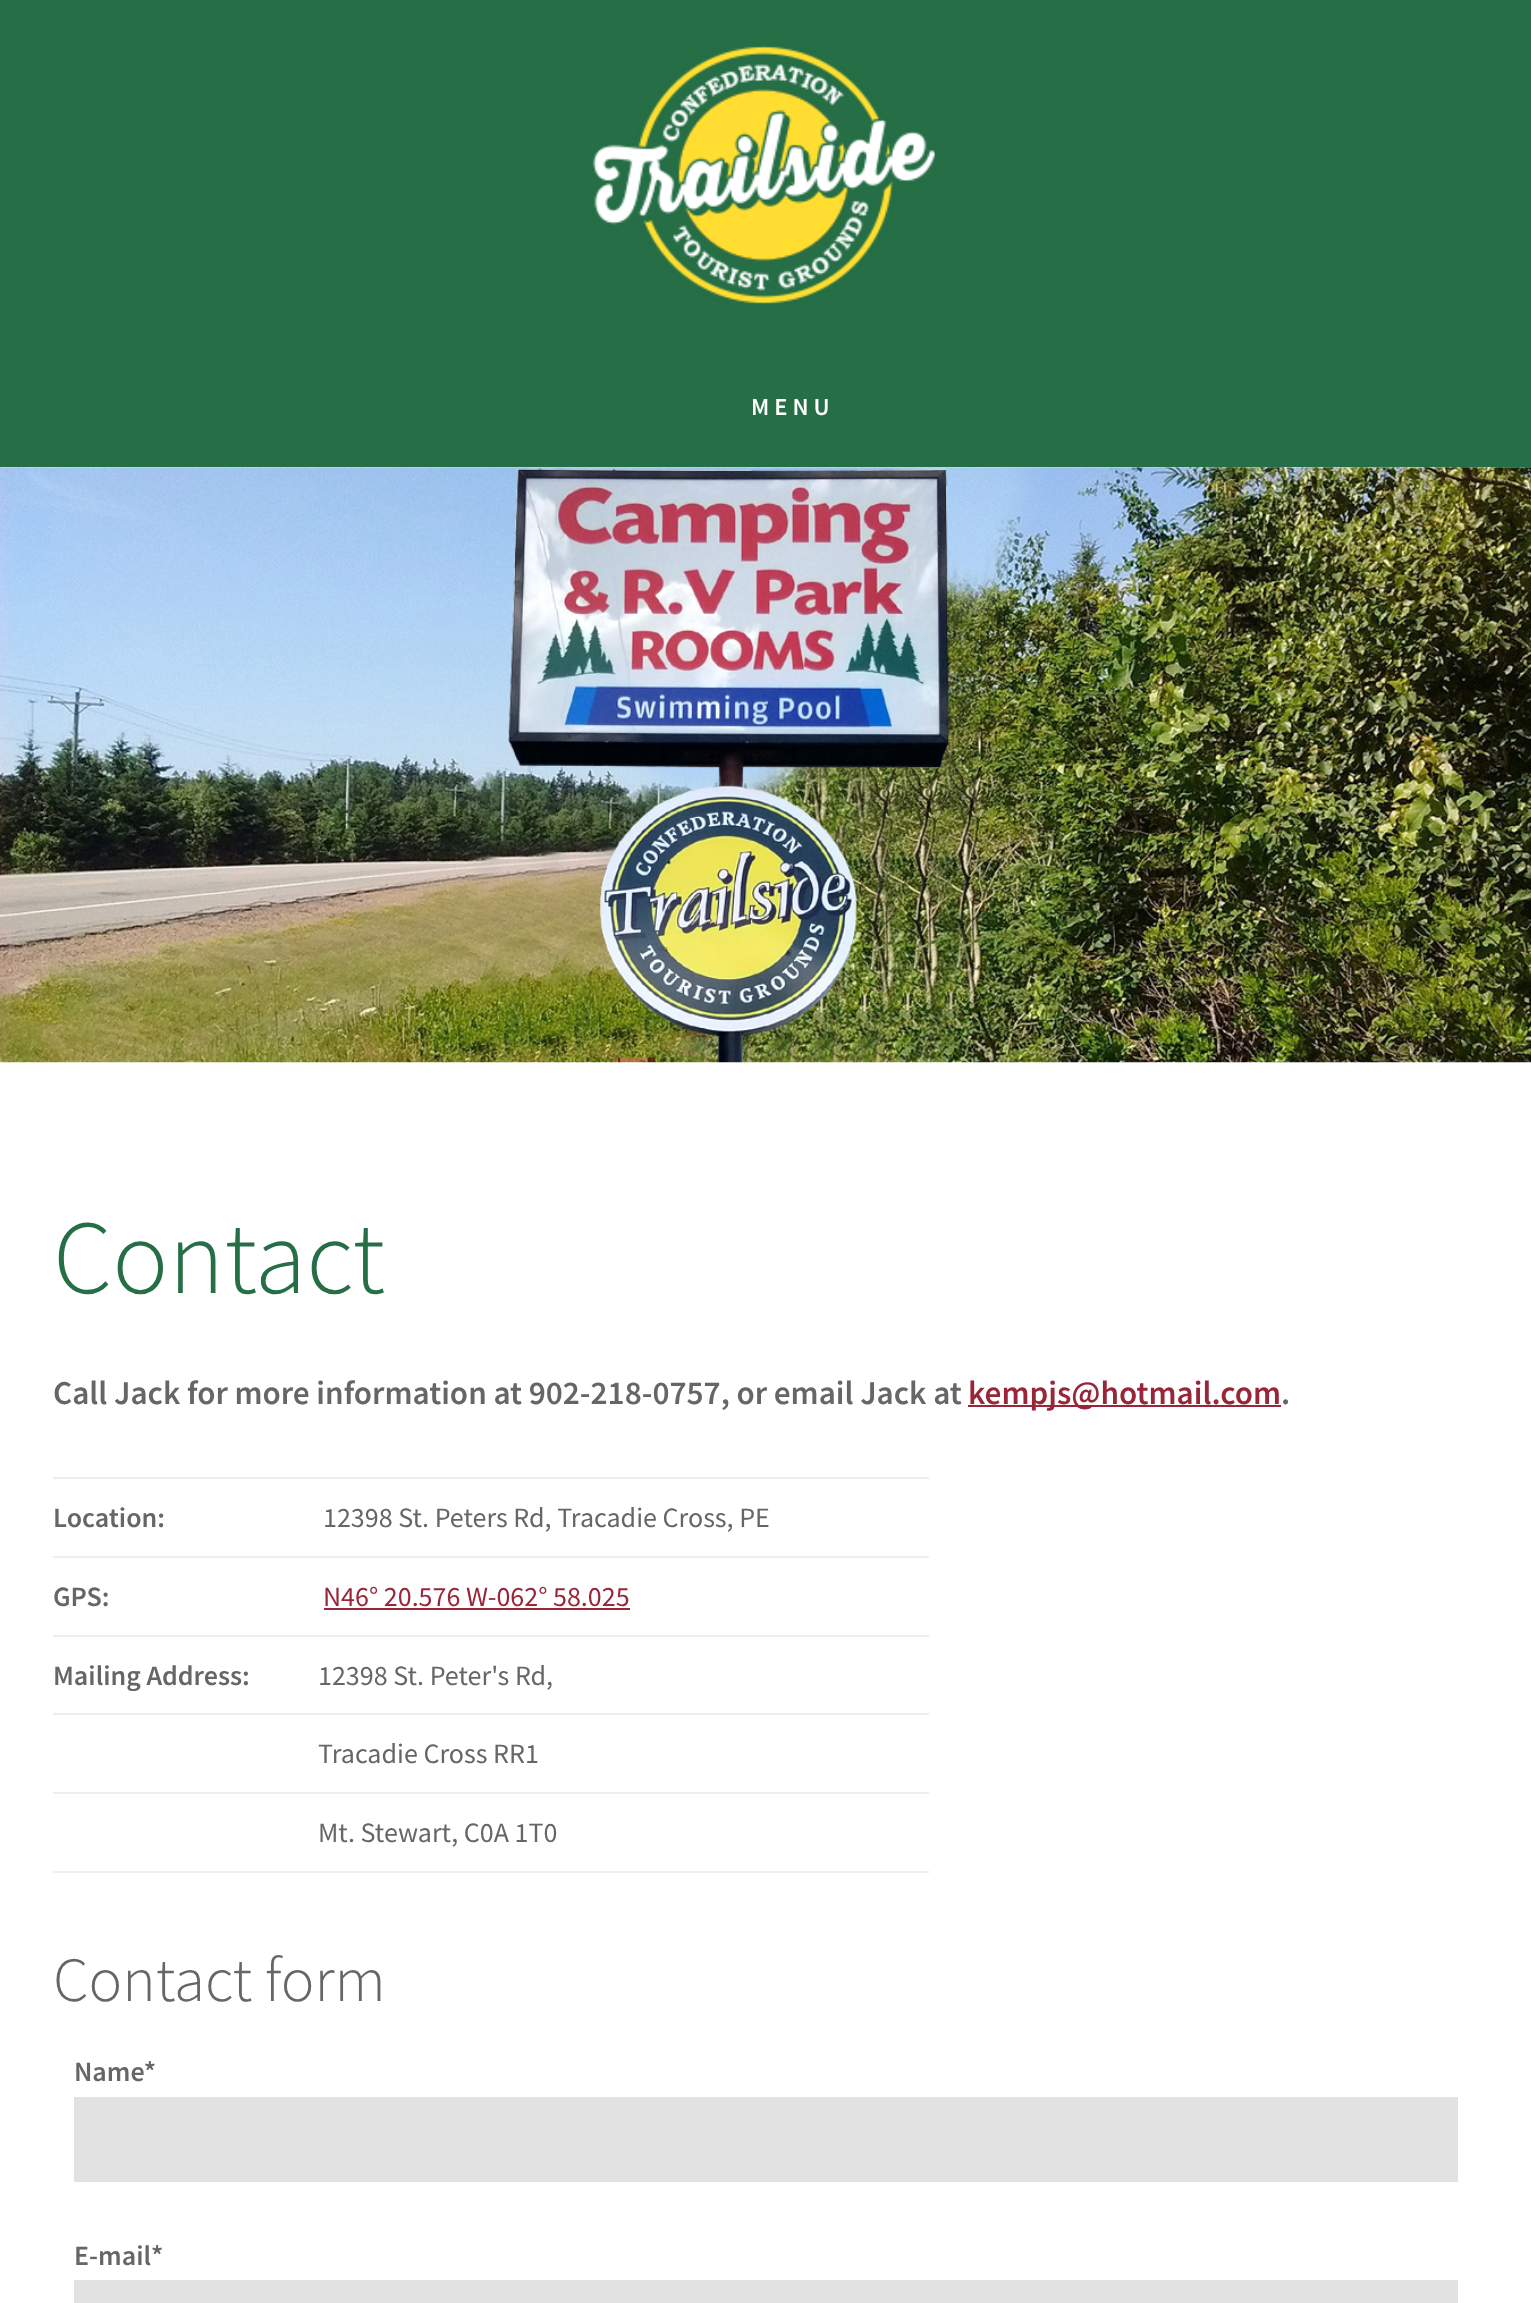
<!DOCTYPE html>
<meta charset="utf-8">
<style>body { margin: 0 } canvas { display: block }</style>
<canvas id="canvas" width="1531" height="2303"></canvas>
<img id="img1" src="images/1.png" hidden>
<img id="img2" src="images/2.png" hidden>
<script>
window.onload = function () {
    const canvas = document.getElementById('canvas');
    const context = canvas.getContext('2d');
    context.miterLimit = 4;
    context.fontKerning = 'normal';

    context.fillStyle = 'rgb(37, 110, 70)';
    context.fillRect(0, 0, 1531, 2303);
    context.drawImage(document.getElementById('img1'), 592, 45, 344, 260);
    context.fillStyle = 'rgb(255, 255, 255)';
    context.fillRect(0, 467, 1531, 1836);
    context.drawImage(document.getElementById('img2'), 0, 467, 1531, 596);
    context.fillStyle = 'rgb(153, 37, 56)';
    context.fillRect(968, 1405, 313, 2);
    context.fillStyle = 'rgb(238, 238, 238)';
    context.fillRect(53, 1871, 876, 2);
    context.fillRect(53, 1477, 876, 2);
    context.fillRect(53, 1556, 876, 2);
    context.fillStyle = 'rgb(153, 37, 56)';
    context.fillRect(324, 1608, 306, 2);
    context.fillStyle = 'rgb(238, 238, 238)';
    context.fillRect(53, 1635, 876, 2);
    context.fillRect(53, 1713, 876, 2);
    context.fillRect(53, 1792, 876, 2);
    context.fillStyle = 'rgb(226, 226, 226)';
    context.fillRect(74, 2097, 1384, 85);
    context.fillRect(74, 2280, 1384, 23);
    context.letterSpacing = '5px';
    context.font = '600 24.5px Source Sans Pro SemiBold';
    context.fillStyle = 'rgb(255, 255, 255)';
    context.fillText('MENU', 751, 415);
    context.letterSpacing = '0px';
    context.font = '300 105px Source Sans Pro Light';
    context.fillStyle = 'rgb(37, 110, 70)';
    context.fillText('Contact', 53, 1293);
    context.font = '600 33.25px Source Sans Pro SemiBold';
    context.fillStyle = 'rgb(102, 102, 102)';
    context.fillText('Call Jack for more information at 902-218-0757, or email Jack at', 53, 1404);
    context.fillStyle = 'rgb(153, 37, 56)';
    context.fillText('kempjs@hotmail.com', 968, 1404);
    context.fillStyle = 'rgb(102, 102, 102)';
    context.fillText('.', 1281, 1404);
    context.font = '600 28px Source Sans Pro SemiBold';
    context.fillText('Location:', 53, 1527);
    context.font = '28px Source Sans Pro';
    context.fillText('12398 St. Peters Rd, Tracadie Cross, PE', 323, 1527);
    context.font = '600 28px Source Sans Pro SemiBold';
    context.fillText('GPS:', 53, 1606);
    context.font = '28px Source Sans Pro';
    context.fillStyle = 'rgb(153, 37, 56)';
    context.fillText('N46° 20.576 W-062° 58.025', 323, 1606);
    context.font = '600 28px Source Sans Pro SemiBold';
    context.fillStyle = 'rgb(102, 102, 102)';
    context.fillText('Mailing Address:', 53, 1685);
    context.font = '28px Source Sans Pro';
    context.fillText('12398 St. Peter\'s Rd,', 318, 1685);
    context.fillText('Tracadie Cross RR1', 318, 1763);
    context.fillText('Mt. Stewart, C0A 1T0', 318, 1842);
    context.font = '300 63px Source Sans Pro Light';
    context.fillText('Contact form', 53, 2001);
    context.font = '600 28px Source Sans Pro SemiBold';
    context.fillText('Name*', 74, 2081);
    context.fillText('E-mail*', 74, 2265);
};
</script>
